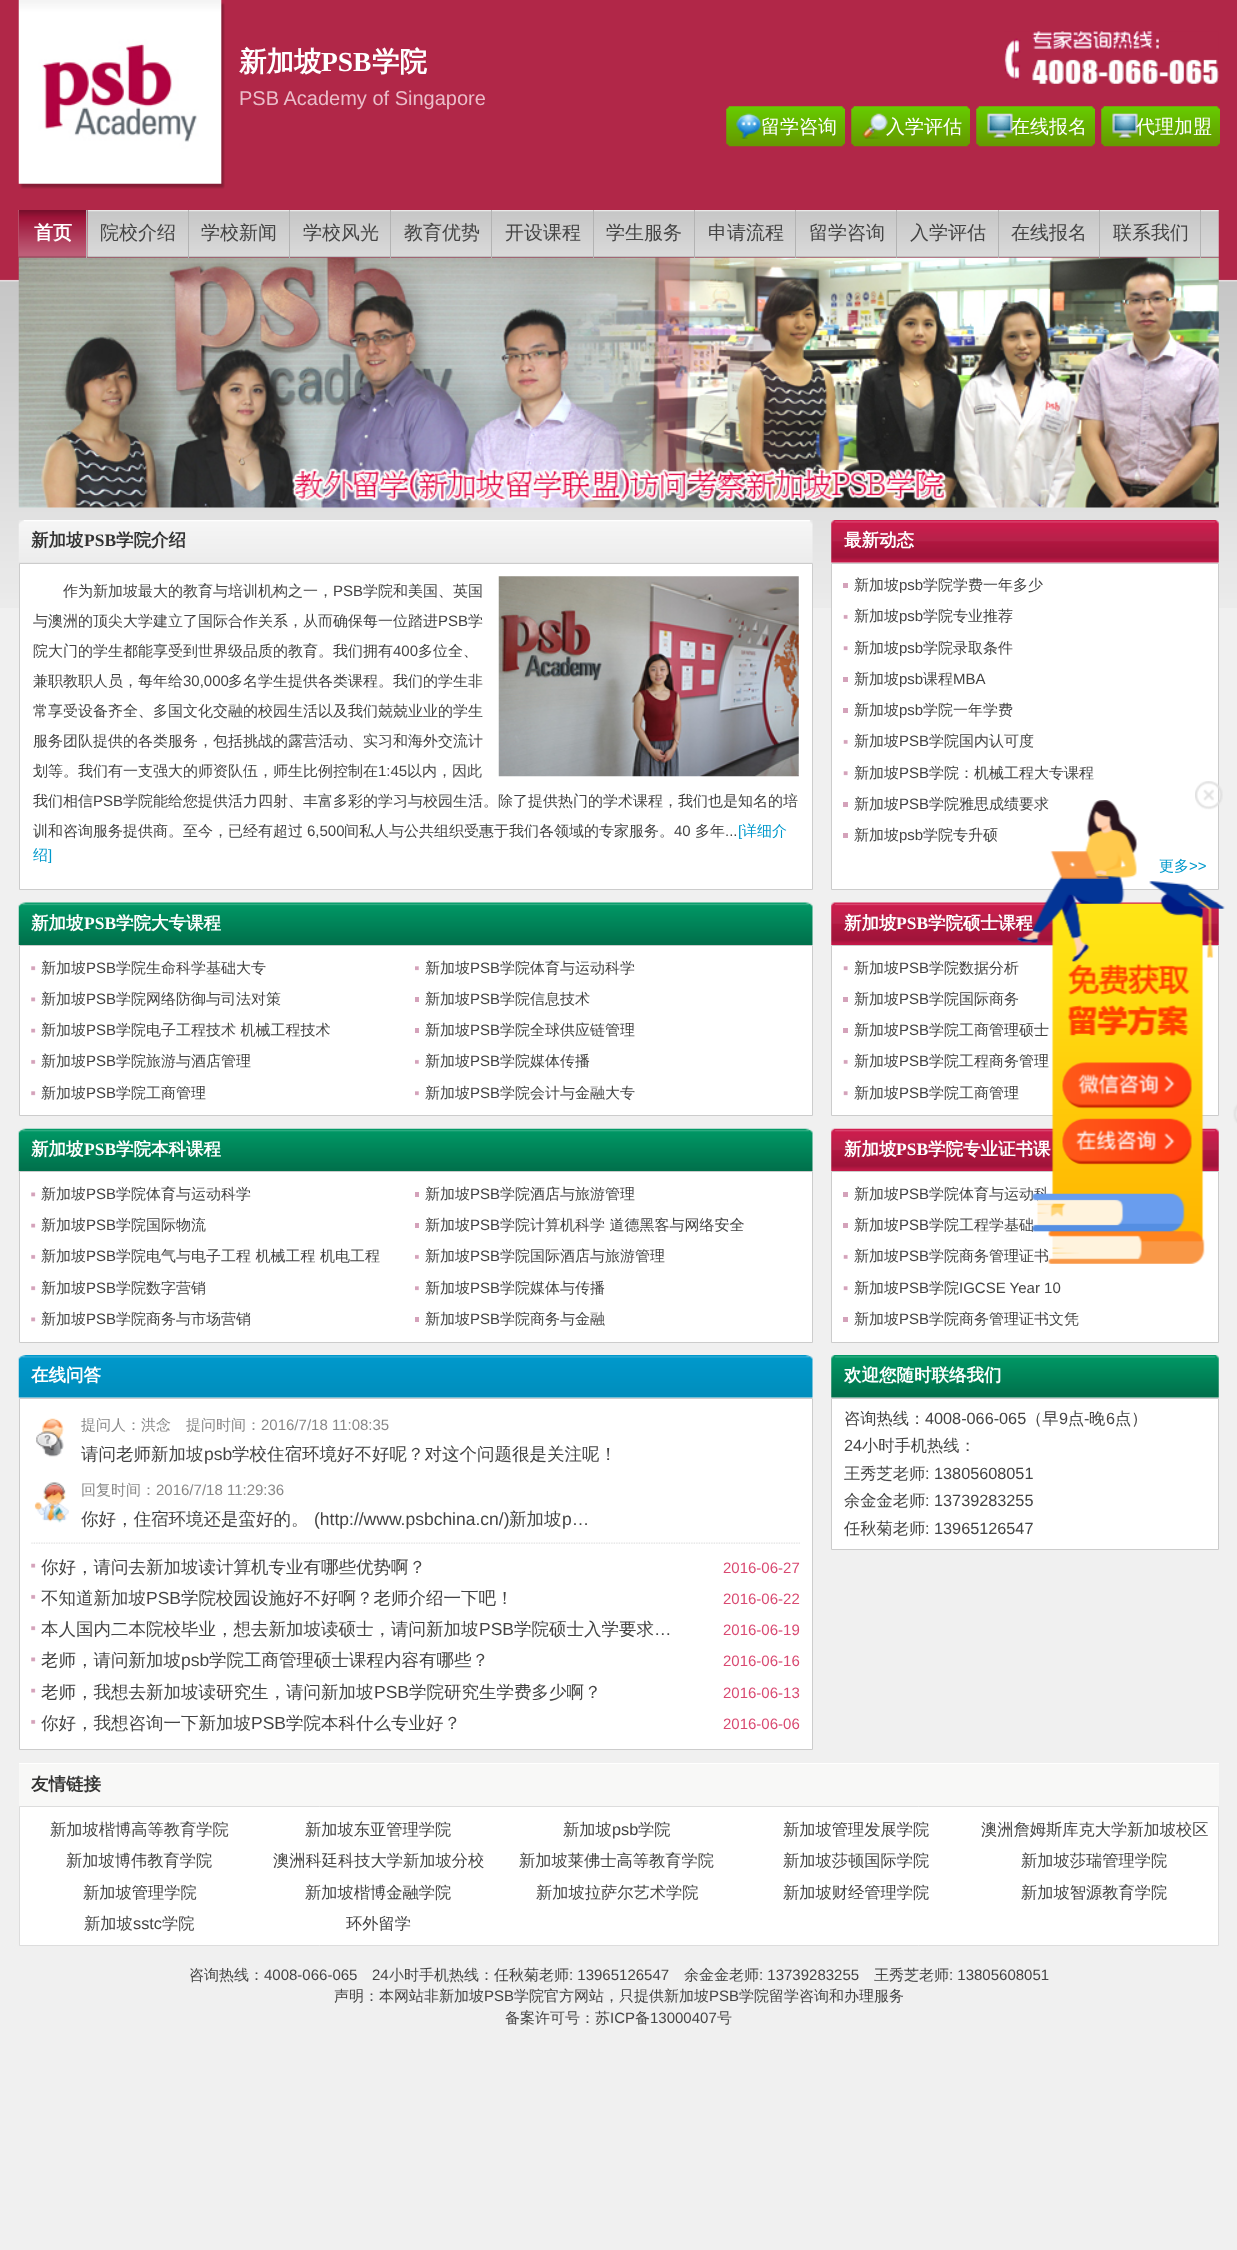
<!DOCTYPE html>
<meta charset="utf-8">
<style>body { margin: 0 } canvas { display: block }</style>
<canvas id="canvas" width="1237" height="2250"></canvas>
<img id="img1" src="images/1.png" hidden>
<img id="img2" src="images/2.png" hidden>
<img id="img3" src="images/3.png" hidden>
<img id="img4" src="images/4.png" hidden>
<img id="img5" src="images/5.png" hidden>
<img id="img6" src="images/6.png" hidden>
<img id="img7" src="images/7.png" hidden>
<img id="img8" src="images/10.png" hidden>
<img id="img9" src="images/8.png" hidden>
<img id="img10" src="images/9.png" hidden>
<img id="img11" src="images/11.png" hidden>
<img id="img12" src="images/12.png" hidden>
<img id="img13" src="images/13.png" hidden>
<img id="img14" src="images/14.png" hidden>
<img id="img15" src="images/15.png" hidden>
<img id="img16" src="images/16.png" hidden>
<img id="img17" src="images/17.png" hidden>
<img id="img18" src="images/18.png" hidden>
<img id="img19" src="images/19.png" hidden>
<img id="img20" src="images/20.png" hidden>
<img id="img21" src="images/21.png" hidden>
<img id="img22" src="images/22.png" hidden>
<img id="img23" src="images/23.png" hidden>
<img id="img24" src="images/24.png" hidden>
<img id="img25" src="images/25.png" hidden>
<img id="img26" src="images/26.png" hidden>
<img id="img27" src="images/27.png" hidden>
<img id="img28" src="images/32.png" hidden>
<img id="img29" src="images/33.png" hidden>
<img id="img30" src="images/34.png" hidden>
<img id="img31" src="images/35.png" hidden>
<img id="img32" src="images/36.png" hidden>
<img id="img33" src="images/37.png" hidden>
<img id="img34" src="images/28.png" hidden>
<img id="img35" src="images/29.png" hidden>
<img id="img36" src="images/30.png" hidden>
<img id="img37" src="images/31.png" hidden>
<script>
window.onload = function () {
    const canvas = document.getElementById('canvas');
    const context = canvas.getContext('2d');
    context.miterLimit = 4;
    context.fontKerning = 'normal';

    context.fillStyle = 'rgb(240, 240, 240)';
    context.fillRect(0, 0, 1237, 2250);
    context.drawImage(document.getElementById('img1'), 0, 0, 1237, 608);
    context.drawImage(document.getElementById('img2'), 18, 0, 207, 189);
    context.drawImage(document.getElementById('img3'), 1004, 31, 215, 53);
    context.drawImage(document.getElementById('img4'), 726, 106, 119, 41);
    context.drawImage(document.getElementById('img5'), 851, 106, 119, 41);
    context.drawImage(document.getElementById('img6'), 976, 106, 119, 41);
    context.drawImage(document.getElementById('img7'), 1101, 106, 119, 41);
    context.drawImage(document.getElementById('img8'), 18, 257, 1201, 251);
    context.drawImage(document.getElementById('img9'), 18, 210, 1201, 48);
    context.drawImage(document.getElementById('img10'), 18, 210, 70, 48);
    context.fillStyle = 'rgb(179, 179, 179)';
    context.fillRect(86, 210, 1, 48);
    context.fillRect(188, 210, 1, 48);
    context.fillRect(289, 210, 1, 48);
    context.fillRect(390, 210, 1, 48);
    context.fillRect(491, 210, 1, 48);
    context.fillRect(593, 210, 1, 48);
    context.fillRect(694, 210, 1, 48);
    context.fillRect(795, 210, 1, 48);
    context.fillRect(896, 210, 1, 48);
    context.fillRect(998, 210, 1, 48);
    context.fillRect(1099, 210, 1, 48);
    context.fillRect(1200, 210, 1, 48);
    context.drawImage(document.getElementById('img11'), 18, 520, 795, 42);
    context.fillStyle = 'rgb(255, 255, 255)';
    context.beginPath();
    context.rect(19.5, 563.5, 793, 326);
    context.fill();
    context.strokeStyle = 'rgb(204, 204, 204)';
    context.stroke();
    context.drawImage(document.getElementById('img12'), 498, 576, 301, 201);
    context.drawImage(document.getElementById('img13'), 831, 520, 388, 43);
    context.beginPath();
    context.rect(831.5, 563.5, 387, 326);
    context.fill();
    context.stroke();
    context.fillStyle = 'rgb(212, 162, 186)';
    context.fillRect(843, 583, 5, 5);
    context.drawImage(document.getElementById('img14'), 843, 614, 5, 5);
    context.drawImage(document.getElementById('img15'), 843, 646, 5, 5);
    context.fillRect(843, 677, 5, 5);
    context.fillRect(843, 708, 5, 5);
    context.drawImage(document.getElementById('img16'), 843, 739, 5, 5);
    context.drawImage(document.getElementById('img17'), 843, 771, 5, 5);
    context.fillRect(843, 802, 5, 5);
    context.fillRect(843, 833, 5, 5);
    context.drawImage(document.getElementById('img18'), 18, 902, 795, 43);
    context.fillStyle = 'rgb(255, 255, 255)';
    context.beginPath();
    context.rect(19.5, 945.5, 793, 170);
    context.fill();
    context.stroke();
    context.drawImage(document.getElementById('img19'), 31, 966, 5, 5);
    context.drawImage(document.getElementById('img20'), 415, 966, 4, 5);
    context.drawImage(document.getElementById('img21'), 31, 997, 5, 5);
    context.fillStyle = 'rgb(212, 162, 186)';
    context.fillRect(415, 997, 4, 5);
    context.drawImage(document.getElementById('img22'), 31, 1028, 5, 5);
    context.fillRect(415, 1028, 4, 5);
    context.drawImage(document.getElementById('img23'), 31, 1059, 5, 5);
    context.drawImage(document.getElementById('img24'), 415, 1059, 4, 5);
    context.drawImage(document.getElementById('img19'), 31, 1091, 5, 5);
    context.drawImage(document.getElementById('img20'), 415, 1091, 4, 5);
    context.drawImage(document.getElementById('img25'), 18, 1128, 795, 44);
    context.fillStyle = 'rgb(255, 255, 255)';
    context.beginPath();
    context.rect(19.5, 1171.5, 793, 171);
    context.fill();
    context.stroke();
    context.drawImage(document.getElementById('img21'), 31, 1192, 5, 5);
    context.fillStyle = 'rgb(212, 162, 186)';
    context.fillRect(415, 1192, 4, 5);
    context.drawImage(document.getElementById('img22'), 31, 1223, 5, 5);
    context.fillRect(415, 1223, 4, 5);
    context.drawImage(document.getElementById('img23'), 31, 1254, 5, 5);
    context.drawImage(document.getElementById('img24'), 415, 1254, 4, 5);
    context.drawImage(document.getElementById('img19'), 31, 1286, 5, 5);
    context.drawImage(document.getElementById('img20'), 415, 1286, 4, 5);
    context.drawImage(document.getElementById('img21'), 31, 1317, 5, 5);
    context.fillRect(415, 1317, 4, 5);
    context.drawImage(document.getElementById('img26'), 831, 902, 388, 43);
    context.fillStyle = 'rgb(255, 255, 255)';
    context.beginPath();
    context.rect(831.5, 945.5, 387, 170);
    context.fill();
    context.stroke();
    context.drawImage(document.getElementById('img17'), 843, 966, 5, 5);
    context.fillStyle = 'rgb(212, 162, 186)';
    context.fillRect(843, 997, 5, 5);
    context.fillRect(843, 1028, 5, 5);
    context.drawImage(document.getElementById('img16'), 843, 1059, 5, 5);
    context.drawImage(document.getElementById('img17'), 843, 1091, 5, 5);
    context.drawImage(document.getElementById('img27'), 831, 1128, 388, 43);
    context.fillStyle = 'rgb(255, 255, 255)';
    context.beginPath();
    context.rect(831.5, 1171.5, 387, 171);
    context.fill();
    context.stroke();
    context.fillStyle = 'rgb(212, 162, 186)';
    context.fillRect(843, 1192, 5, 5);
    context.fillRect(843, 1223, 5, 5);
    context.drawImage(document.getElementById('img16'), 843, 1254, 5, 5);
    context.drawImage(document.getElementById('img15'), 843, 1286, 5, 5);
    context.fillRect(843, 1317, 5, 5);
    context.drawImage(document.getElementById('img28'), 18, 1355, 795, 43);
    context.fillStyle = 'rgb(255, 255, 255)';
    context.beginPath();
    context.rect(19.5, 1398.5, 793, 351);
    context.fill();
    context.stroke();
    context.drawImage(document.getElementById('img29'), 31, 1542, 769, 2);
    context.drawImage(document.getElementById('img30'), 36, 1418, 28, 39);
    context.drawImage(document.getElementById('img31'), 34, 1482, 35, 41);
    context.drawImage(document.getElementById('img32'), 31, 1563, 5, 5);
    context.drawImage(document.getElementById('img23'), 31, 1594, 5, 5);
    context.drawImage(document.getElementById('img19'), 31, 1626, 5, 5);
    context.drawImage(document.getElementById('img21'), 31, 1657, 5, 5);
    context.drawImage(document.getElementById('img22'), 31, 1688, 5, 5);
    context.drawImage(document.getElementById('img23'), 31, 1719, 5, 5);
    context.drawImage(document.getElementById('img33'), 831, 1355, 388, 43);
    context.beginPath();
    context.rect(831.5, 1398.5, 387, 151);
    context.fill();
    context.stroke();
    context.fillStyle = 'rgb(248, 248, 247)';
    context.fillRect(19, 1764, 1200, 42);
    context.fillStyle = 'rgb(255, 255, 255)';
    context.fillRect(19, 1763, 1200, 1);
    context.beginPath();
    context.rect(19.5, 1806.5, 1199, 139);
    context.fill();
    context.strokeStyle = 'rgb(221, 221, 221)';
    context.stroke();
    context.font = 'bold 27.5px WenQuanYi Zen Hei';
    context.fillText('新加坡', 239, 71);
    context.font = 'bold 27.5px Liberation Serif';
    context.fillText('PSB', 321, 71);
    context.font = 'bold 27.5px WenQuanYi Zen Hei';
    context.fillText('学院', 372, 71);
    context.font = '20px Liberation Sans';
    context.fillStyle = 'rgb(235, 189, 201)';
    context.fillText('PSB Academy of Singapore', 239, 105);
    context.font = '500 19px WenQuanYi Zen Hei';
    context.fillStyle = 'rgb(255, 255, 255)';
    context.fillText('留学咨询', 761, 133);
    context.fillText('入学评估', 886, 133);
    context.fillText('在线报名', 1011, 133);
    context.fillText('代理加盟', 1136, 133);
    context.font = 'bold 19px WenQuanYi Zen Hei';
    context.fillText('首页', 34, 239);
    context.font = '500 19px WenQuanYi Zen Hei';
    context.fillStyle = 'rgb(68, 68, 68)';
    context.fillText('院校介绍', 100, 239);
    context.fillText('学校新闻', 201, 239);
    context.fillText('学校风光', 303, 239);
    context.fillText('教育优势', 404, 239);
    context.fillText('开设课程', 505, 239);
    context.fillText('学生服务', 606, 239);
    context.fillText('申请流程', 708, 239);
    context.fillText('留学咨询', 809, 239);
    context.fillText('入学评估', 910, 239);
    context.fillText('在线报名', 1011, 239);
    context.fillText('联系我们', 1113, 239);
    context.font = 'bold 17.5px WenQuanYi Zen Hei';
    context.fillStyle = 'rgb(51, 51, 51)';
    context.fillText('新加坡', 31, 546);
    context.font = 'bold 17.5px Liberation Serif';
    context.fillText('PSB', 84, 546);
    context.font = 'bold 17.5px WenQuanYi Zen Hei';
    context.fillText('学院介绍', 116, 546);
    context.font = '500 15px WenQuanYi Zen Hei';
    context.fillStyle = 'rgb(68, 68, 68)';
    context.fillText('作为新加坡最大的教育与培训机构之一，', 63, 596);
    context.font = '15px Liberation Sans';
    context.fillText('PSB', 333, 596);
    context.font = '500 15px WenQuanYi Zen Hei';
    context.fillText('学院和美国、英国', 363, 596);
    context.fillText('与澳洲的顶尖大学建立了国际合作关系，从而确保每一位踏进', 33, 626);
    context.font = '15px Liberation Sans';
    context.fillText('PSB', 438, 626);
    context.font = '500 15px WenQuanYi Zen Hei';
    context.fillText('学', 468, 626);
    context.fillText('院大门的学生都能享受到世界级品质的教育。我们拥有', 33, 656);
    context.font = '15px Liberation Sans';
    context.fillText('400', 393, 656);
    context.font = '500 15px WenQuanYi Zen Hei';
    context.fillText('多位全、', 418, 656);
    context.fillText('兼职教职人员，每年给', 33, 686);
    context.font = '15px Liberation Sans';
    context.fillText('30,000', 183, 686);
    context.font = '500 15px WenQuanYi Zen Hei';
    context.fillText('多名学生提供各类课程。我们的学生非', 228, 686);
    context.fillText('常享受设备齐全、多国文化交融的校园生活以及我们兢兢业业的学生', 33, 716);
    context.fillText('服务团队提供的各类服务，包括挑战的露营活动、实习和海外交流计', 33, 746);
    context.fillText('划等。我们有一支强大的师资队伍，师生比例控制在', 33, 776);
    context.font = '15px Liberation Sans';
    context.fillText('1:45', 378, 776);
    context.font = '500 15px WenQuanYi Zen Hei';
    context.fillText('以内，因此', 407, 776);
    context.fillText('我们相信', 33, 806);
    context.font = '15px Liberation Sans';
    context.fillText('PSB', 93, 806);
    context.font = '500 15px WenQuanYi Zen Hei';
    context.fillText('学院能给您提供活力四射、丰富多彩的学习与校园生活。除了提供热门的学术课程，我们也是知名的培', 123, 806);
    context.fillText('训和咨询服务提供商。至今，已经有超过', 33, 836);
    context.font = '15px Liberation Sans';
    context.fillText('6,500', 307, 836);
    context.font = '500 15px WenQuanYi Zen Hei';
    context.fillText('间私人与公共组织受惠于我们各领域的专家服务。', 344, 836);
    context.font = '15px Liberation Sans';
    context.fillText('40', 674, 836);
    context.font = '500 15px WenQuanYi Zen Hei';
    context.fillText('多年', 695, 836);
    context.font = '15px Liberation Sans';
    context.fillText('...', 725, 836);
    context.fillStyle = 'rgb(0, 153, 204)';
    context.fillText('[', 738, 836);
    context.font = '500 15px WenQuanYi Zen Hei';
    context.fillText('详细介', 742, 836);
    context.fillText('绍', 33, 860);
    context.font = '15px Liberation Sans';
    context.fillText(']', 48, 860);
    context.font = 'bold 17.5px WenQuanYi Zen Hei';
    context.fillStyle = 'rgb(255, 255, 255)';
    context.fillText('最新动态', 844, 546);
    context.font = '500 15px WenQuanYi Zen Hei';
    context.fillStyle = 'rgb(68, 68, 68)';
    context.fillText('新加坡', 854, 590);
    context.font = '15px Liberation Sans';
    context.fillText('psb', 899, 590);
    context.font = '500 15px WenQuanYi Zen Hei';
    context.fillText('学院学费一年多少', 923, 590);
    context.fillText('新加坡', 854, 621);
    context.font = '15px Liberation Sans';
    context.fillText('psb', 899, 621);
    context.font = '500 15px WenQuanYi Zen Hei';
    context.fillText('学院专业推荐', 923, 621);
    context.fillText('新加坡', 854, 653);
    context.font = '15px Liberation Sans';
    context.fillText('psb', 899, 653);
    context.font = '500 15px WenQuanYi Zen Hei';
    context.fillText('学院录取条件', 923, 653);
    context.fillText('新加坡', 854, 684);
    context.font = '15px Liberation Sans';
    context.fillText('psb', 899, 684);
    context.font = '500 15px WenQuanYi Zen Hei';
    context.fillText('课程', 923, 684);
    context.font = '15px Liberation Sans';
    context.fillText('MBA', 953, 684);
    context.font = '500 15px WenQuanYi Zen Hei';
    context.fillText('新加坡', 854, 715);
    context.font = '15px Liberation Sans';
    context.fillText('psb', 899, 715);
    context.font = '500 15px WenQuanYi Zen Hei';
    context.fillText('学院一年学费', 923, 715);
    context.fillText('新加坡', 854, 746);
    context.font = '15px Liberation Sans';
    context.fillText('PSB', 899, 746);
    context.font = '500 15px WenQuanYi Zen Hei';
    context.fillText('学院国内认可度', 929, 746);
    context.fillText('新加坡', 854, 778);
    context.font = '15px Liberation Sans';
    context.fillText('PSB', 899, 778);
    context.font = '500 15px WenQuanYi Zen Hei';
    context.fillText('学院：机械工程大专课程', 929, 778);
    context.fillText('新加坡', 854, 809);
    context.font = '15px Liberation Sans';
    context.fillText('PSB', 899, 809);
    context.font = '500 15px WenQuanYi Zen Hei';
    context.fillText('学院雅思成绩要求', 929, 809);
    context.fillText('新加坡', 854, 840);
    context.font = '15px Liberation Sans';
    context.fillText('psb', 899, 840);
    context.font = '500 15px WenQuanYi Zen Hei';
    context.fillText('学院专升硕', 923, 840);
    context.fillStyle = 'rgb(0, 153, 204)';
    context.fillText('更多', 1159, 871);
    context.font = '15px Liberation Sans';
    context.fillText('>>', 1189, 871);
    context.font = 'bold 17.5px WenQuanYi Zen Hei';
    context.fillStyle = 'rgb(255, 255, 255)';
    context.fillText('新加坡', 31, 929);
    context.font = 'bold 17.5px Liberation Serif';
    context.fillText('PSB', 84, 929);
    context.font = 'bold 17.5px WenQuanYi Zen Hei';
    context.fillText('学院大专课程', 116, 929);
    context.font = '500 15px WenQuanYi Zen Hei';
    context.fillStyle = 'rgb(68, 68, 68)';
    context.fillText('新加坡', 41, 973);
    context.font = '15px Liberation Sans';
    context.fillText('PSB', 86, 973);
    context.font = '500 15px WenQuanYi Zen Hei';
    context.fillText('学院生命科学基础大专', 116, 973);
    context.fillText('新加坡', 425, 973);
    context.font = '15px Liberation Sans';
    context.fillText('PSB', 470, 973);
    context.font = '500 15px WenQuanYi Zen Hei';
    context.fillText('学院体育与运动科学', 500, 973);
    context.fillText('新加坡', 41, 1004);
    context.font = '15px Liberation Sans';
    context.fillText('PSB', 86, 1004);
    context.font = '500 15px WenQuanYi Zen Hei';
    context.fillText('学院网络防御与司法对策', 116, 1004);
    context.fillText('新加坡', 425, 1004);
    context.font = '15px Liberation Sans';
    context.fillText('PSB', 470, 1004);
    context.font = '500 15px WenQuanYi Zen Hei';
    context.fillText('学院信息技术', 500, 1004);
    context.fillText('新加坡', 41, 1035);
    context.font = '15px Liberation Sans';
    context.fillText('PSB', 86, 1035);
    context.font = '500 15px WenQuanYi Zen Hei';
    context.fillText('学院电子工程技术 机械工程技术', 116, 1035);
    context.fillText('新加坡', 425, 1035);
    context.font = '15px Liberation Sans';
    context.fillText('PSB', 470, 1035);
    context.font = '500 15px WenQuanYi Zen Hei';
    context.fillText('学院全球供应链管理', 500, 1035);
    context.fillText('新加坡', 41, 1066);
    context.font = '15px Liberation Sans';
    context.fillText('PSB', 86, 1066);
    context.font = '500 15px WenQuanYi Zen Hei';
    context.fillText('学院旅游与酒店管理', 116, 1066);
    context.fillText('新加坡', 425, 1066);
    context.font = '15px Liberation Sans';
    context.fillText('PSB', 470, 1066);
    context.font = '500 15px WenQuanYi Zen Hei';
    context.fillText('学院媒体传播', 500, 1066);
    context.fillText('新加坡', 41, 1098);
    context.font = '15px Liberation Sans';
    context.fillText('PSB', 86, 1098);
    context.font = '500 15px WenQuanYi Zen Hei';
    context.fillText('学院工商管理', 116, 1098);
    context.fillText('新加坡', 425, 1098);
    context.font = '15px Liberation Sans';
    context.fillText('PSB', 470, 1098);
    context.font = '500 15px WenQuanYi Zen Hei';
    context.fillText('学院会计与金融大专', 500, 1098);
    context.font = 'bold 17.5px WenQuanYi Zen Hei';
    context.fillStyle = 'rgb(255, 255, 255)';
    context.fillText('新加坡', 31, 1155);
    context.font = 'bold 17.5px Liberation Serif';
    context.fillText('PSB', 84, 1155);
    context.font = 'bold 17.5px WenQuanYi Zen Hei';
    context.fillText('学院本科课程', 116, 1155);
    context.font = '500 15px WenQuanYi Zen Hei';
    context.fillStyle = 'rgb(68, 68, 68)';
    context.fillText('新加坡', 41, 1199);
    context.font = '15px Liberation Sans';
    context.fillText('PSB', 86, 1199);
    context.font = '500 15px WenQuanYi Zen Hei';
    context.fillText('学院体育与运动科学', 116, 1199);
    context.fillText('新加坡', 425, 1199);
    context.font = '15px Liberation Sans';
    context.fillText('PSB', 470, 1199);
    context.font = '500 15px WenQuanYi Zen Hei';
    context.fillText('学院酒店与旅游管理', 500, 1199);
    context.fillText('新加坡', 41, 1230);
    context.font = '15px Liberation Sans';
    context.fillText('PSB', 86, 1230);
    context.font = '500 15px WenQuanYi Zen Hei';
    context.fillText('学院国际物流', 116, 1230);
    context.fillText('新加坡', 425, 1230);
    context.font = '15px Liberation Sans';
    context.fillText('PSB', 470, 1230);
    context.font = '500 15px WenQuanYi Zen Hei';
    context.fillText('学院计算机科学 道德黑客与网络安全', 500, 1230);
    context.fillText('新加坡', 41, 1261);
    context.font = '15px Liberation Sans';
    context.fillText('PSB', 86, 1261);
    context.font = '500 15px WenQuanYi Zen Hei';
    context.fillText('学院电气与电子工程 机械工程 机电工程', 116, 1261);
    context.fillText('新加坡', 425, 1261);
    context.font = '15px Liberation Sans';
    context.fillText('PSB', 470, 1261);
    context.font = '500 15px WenQuanYi Zen Hei';
    context.fillText('学院国际酒店与旅游管理', 500, 1261);
    context.fillText('新加坡', 41, 1293);
    context.font = '15px Liberation Sans';
    context.fillText('PSB', 86, 1293);
    context.font = '500 15px WenQuanYi Zen Hei';
    context.fillText('学院数字营销', 116, 1293);
    context.fillText('新加坡', 425, 1293);
    context.font = '15px Liberation Sans';
    context.fillText('PSB', 470, 1293);
    context.font = '500 15px WenQuanYi Zen Hei';
    context.fillText('学院媒体与传播', 500, 1293);
    context.fillText('新加坡', 41, 1324);
    context.font = '15px Liberation Sans';
    context.fillText('PSB', 86, 1324);
    context.font = '500 15px WenQuanYi Zen Hei';
    context.fillText('学院商务与市场营销', 116, 1324);
    context.fillText('新加坡', 425, 1324);
    context.font = '15px Liberation Sans';
    context.fillText('PSB', 470, 1324);
    context.font = '500 15px WenQuanYi Zen Hei';
    context.fillText('学院商务与金融', 500, 1324);
    context.font = 'bold 17.5px WenQuanYi Zen Hei';
    context.fillStyle = 'rgb(255, 255, 255)';
    context.fillText('新加坡', 844, 929);
    context.font = 'bold 17.5px Liberation Serif';
    context.fillText('PSB', 896, 929);
    context.font = 'bold 17.5px WenQuanYi Zen Hei';
    context.fillText('学院硕士课程', 928, 929);
    context.font = '500 15px WenQuanYi Zen Hei';
    context.fillStyle = 'rgb(68, 68, 68)';
    context.fillText('新加坡', 854, 973);
    context.font = '15px Liberation Sans';
    context.fillText('PSB', 899, 973);
    context.font = '500 15px WenQuanYi Zen Hei';
    context.fillText('学院数据分析', 929, 973);
    context.fillText('新加坡', 854, 1004);
    context.font = '15px Liberation Sans';
    context.fillText('PSB', 899, 1004);
    context.font = '500 15px WenQuanYi Zen Hei';
    context.fillText('学院国际商务', 929, 1004);
    context.fillText('新加坡', 854, 1035);
    context.font = '15px Liberation Sans';
    context.fillText('PSB', 899, 1035);
    context.font = '500 15px WenQuanYi Zen Hei';
    context.fillText('学院工商管理硕士', 929, 1035);
    context.fillText('新加坡', 854, 1066);
    context.font = '15px Liberation Sans';
    context.fillText('PSB', 899, 1066);
    context.font = '500 15px WenQuanYi Zen Hei';
    context.fillText('学院工程商务管理', 929, 1066);
    context.fillText('新加坡', 854, 1098);
    context.font = '15px Liberation Sans';
    context.fillText('PSB', 899, 1098);
    context.font = '500 15px WenQuanYi Zen Hei';
    context.fillText('学院工商管理', 929, 1098);
    context.font = 'bold 17.5px WenQuanYi Zen Hei';
    context.fillStyle = 'rgb(255, 255, 255)';
    context.fillText('新加坡', 844, 1155);
    context.font = 'bold 17.5px Liberation Serif';
    context.fillText('PSB', 896, 1155);
    context.font = 'bold 17.5px WenQuanYi Zen Hei';
    context.fillText('学院专业证书课', 928, 1155);
    context.font = '500 15px WenQuanYi Zen Hei';
    context.fillStyle = 'rgb(68, 68, 68)';
    context.fillText('新加坡', 854, 1199);
    context.font = '15px Liberation Sans';
    context.fillText('PSB', 899, 1199);
    context.font = '500 15px WenQuanYi Zen Hei';
    context.fillText('学院体育与运动科', 929, 1199);
    context.fillText('新加坡', 854, 1230);
    context.font = '15px Liberation Sans';
    context.fillText('PSB', 899, 1230);
    context.font = '500 15px WenQuanYi Zen Hei';
    context.fillText('学院工程学基础', 929, 1230);
    context.fillText('新加坡', 854, 1261);
    context.font = '15px Liberation Sans';
    context.fillText('PSB', 899, 1261);
    context.font = '500 15px WenQuanYi Zen Hei';
    context.fillText('学院商务管理证书', 929, 1261);
    context.fillText('新加坡', 854, 1293);
    context.font = '15px Liberation Sans';
    context.fillText('PSB', 899, 1293);
    context.font = '500 15px WenQuanYi Zen Hei';
    context.fillText('学院', 929, 1293);
    context.font = '15px Liberation Sans';
    context.fillText('IGCSE Year 10', 959, 1293);
    context.font = '500 15px WenQuanYi Zen Hei';
    context.fillText('新加坡', 854, 1324);
    context.font = '15px Liberation Sans';
    context.fillText('PSB', 899, 1324);
    context.font = '500 15px WenQuanYi Zen Hei';
    context.fillText('学院商务管理证书文凭', 929, 1324);
    context.drawImage(document.getElementById('img34'), 1017, 800, 220, 464);
    context.drawImage(document.getElementById('img35'), 1195, 781, 28, 29);
    context.drawImage(document.getElementById('img36'), 1062, 1062, 130, 47);
    context.drawImage(document.getElementById('img37'), 1062, 1118, 130, 47);
    context.font = 'bold 17.5px WenQuanYi Zen Hei';
    context.fillStyle = 'rgb(255, 255, 255)';
    context.fillText('在线问答', 31, 1381);
    context.font = '500 15px WenQuanYi Zen Hei';
    context.fillStyle = 'rgb(136, 136, 136)';
    context.fillText('提问人：洪念　提问时间：', 81, 1430);
    context.font = '15px Liberation Sans';
    context.fillText('2016/7/18 11:08:35', 261, 1430);
    context.font = '500 17.5px WenQuanYi Zen Hei';
    context.fillStyle = 'rgb(68, 68, 68)';
    context.fillText('请问老师新加坡', 81, 1460);
    context.font = '17.5px Liberation Sans';
    context.fillText('psb', 204, 1460);
    context.font = '500 17.5px WenQuanYi Zen Hei';
    context.fillText('学校住宿环境好不好呢？对这个问题很是关注呢！', 232, 1460);
    context.font = '500 15px WenQuanYi Zen Hei';
    context.fillStyle = 'rgb(136, 136, 136)';
    context.fillText('回复时间：', 81, 1495);
    context.font = '15px Liberation Sans';
    context.fillText('2016/7/18 11:29:36', 156, 1495);
    context.font = '500 17.5px WenQuanYi Zen Hei';
    context.fillStyle = 'rgb(68, 68, 68)';
    context.fillText('你好，住宿环境还是蛮好的。', 81, 1525);
    context.font = '17.5px Liberation Sans';
    context.fillText('(http://www.psbchina.cn/)', 314, 1525);
    context.font = '500 17.5px WenQuanYi Zen Hei';
    context.fillText('新加坡', 509, 1525);
    context.font = '17.5px Liberation Sans';
    context.fillText('p…', 562, 1525);
    context.font = '500 17.5px WenQuanYi Zen Hei';
    context.fillText('你好，请问去新加坡读计算机专业有哪些优势啊？', 41, 1573);
    context.font = '15px Liberation Sans';
    context.fillStyle = 'rgb(217, 73, 113)';
    context.fillText('2016-06-27', 723, 1573);
    context.font = '500 17.5px WenQuanYi Zen Hei';
    context.fillStyle = 'rgb(68, 68, 68)';
    context.fillText('不知道新加坡', 41, 1604);
    context.font = '17.5px Liberation Sans';
    context.fillText('PSB', 146, 1604);
    context.font = '500 17.5px WenQuanYi Zen Hei';
    context.fillText('学院校园设施好不好啊？老师介绍一下吧！', 181, 1604);
    context.font = '15px Liberation Sans';
    context.fillStyle = 'rgb(217, 73, 113)';
    context.fillText('2016-06-22', 723, 1604);
    context.font = '500 17.5px WenQuanYi Zen Hei';
    context.fillStyle = 'rgb(68, 68, 68)';
    context.fillText('本人国内二本院校毕业，想去新加坡读硕士，请问新加坡', 41, 1635);
    context.font = '17.5px Liberation Sans';
    context.fillText('PSB', 479, 1635);
    context.font = '500 17.5px WenQuanYi Zen Hei';
    context.fillText('学院硕士入学要求', 514, 1635);
    context.font = '15px Liberation Sans';
    context.fillStyle = 'rgb(217, 73, 113)';
    context.fillText('2016-06-19', 723, 1635);
    context.font = '17.5px Liberation Sans';
    context.fillStyle = 'rgb(68, 68, 68)';
    context.fillText('…', 654, 1635);
    context.font = '500 17.5px WenQuanYi Zen Hei';
    context.fillText('老师，请问新加坡', 41, 1666);
    context.font = '17.5px Liberation Sans';
    context.fillText('psb', 181, 1666);
    context.font = '500 17.5px WenQuanYi Zen Hei';
    context.fillText('学院工商管理硕士课程内容有哪些？', 209, 1666);
    context.font = '15px Liberation Sans';
    context.fillStyle = 'rgb(217, 73, 113)';
    context.fillText('2016-06-16', 723, 1666);
    context.font = '500 17.5px WenQuanYi Zen Hei';
    context.fillStyle = 'rgb(68, 68, 68)';
    context.fillText('老师，我想去新加坡读研究生，请问新加坡', 41, 1698);
    context.font = '17.5px Liberation Sans';
    context.fillText('PSB', 374, 1698);
    context.font = '500 17.5px WenQuanYi Zen Hei';
    context.fillText('学院研究生学费多少啊？', 409, 1698);
    context.font = '15px Liberation Sans';
    context.fillStyle = 'rgb(217, 73, 113)';
    context.fillText('2016-06-13', 723, 1698);
    context.font = '500 17.5px WenQuanYi Zen Hei';
    context.fillStyle = 'rgb(68, 68, 68)';
    context.fillText('你好，我想咨询一下新加坡', 41, 1729);
    context.font = '17.5px Liberation Sans';
    context.fillText('PSB', 251, 1729);
    context.font = '500 17.5px WenQuanYi Zen Hei';
    context.fillText('学院本科什么专业好？', 286, 1729);
    context.font = '15px Liberation Sans';
    context.fillStyle = 'rgb(217, 73, 113)';
    context.fillText('2016-06-06', 723, 1729);
    context.font = 'bold 17.5px WenQuanYi Zen Hei';
    context.fillStyle = 'rgb(255, 255, 255)';
    context.fillText('欢迎您随时联络我们', 844, 1381);
    context.font = '500 16.25px WenQuanYi Zen Hei';
    context.fillStyle = 'rgb(68, 68, 68)';
    context.fillText('咨询热线：', 844, 1424);
    context.font = '16.25px Liberation Sans';
    context.fillText('4008-066-065', 925, 1424);
    context.font = '500 16.25px WenQuanYi Zen Hei';
    context.fillText('（早', 1026, 1424);
    context.font = '16.25px Liberation Sans';
    context.fillText('9', 1059, 1424);
    context.font = '500 16.25px WenQuanYi Zen Hei';
    context.fillText('点', 1068, 1424);
    context.font = '16.25px Liberation Sans';
    context.fillText('-', 1084, 1424);
    context.font = '500 16.25px WenQuanYi Zen Hei';
    context.fillText('晚', 1089, 1424);
    context.font = '16.25px Liberation Sans';
    context.fillText('6', 1106, 1424);
    context.font = '500 16.25px WenQuanYi Zen Hei';
    context.fillText('点）', 1115, 1424);
    context.font = '16.25px Liberation Sans';
    context.fillText('24', 844, 1451);
    context.font = '500 16.25px WenQuanYi Zen Hei';
    context.fillText('小时手机热线：', 862, 1451);
    context.fillText('王秀芝老师', 844, 1479);
    context.font = '16.25px Liberation Sans';
    context.fillText(': 13805608051', 925, 1479);
    context.font = '500 16.25px WenQuanYi Zen Hei';
    context.fillText('余金金老师', 844, 1506);
    context.font = '16.25px Liberation Sans';
    context.fillText(': 13739283255', 925, 1506);
    context.font = '500 16.25px WenQuanYi Zen Hei';
    context.fillText('任秋菊老师', 844, 1534);
    context.font = '16.25px Liberation Sans';
    context.fillText(': 13965126547', 925, 1534);
    context.font = 'bold 17.5px WenQuanYi Zen Hei';
    context.fillStyle = 'rgb(51, 51, 51)';
    context.fillText('友情链接', 31, 1790);
    context.font = '500 16.25px WenQuanYi Zen Hei';
    context.fillStyle = 'rgb(68, 68, 68)';
    context.fillText('新加坡楷博高等教育学院', 50, 1835);
    context.fillText('新加坡东亚管理学院', 305, 1835);
    context.fillText('新加坡', 563, 1835);
    context.font = '16.25px Liberation Sans';
    context.fillText('psb', 612, 1835);
    context.font = '500 16.25px WenQuanYi Zen Hei';
    context.fillText('学院', 638, 1835);
    context.fillText('新加坡管理发展学院', 783, 1835);
    context.fillText('澳洲詹姆斯库克大学新加坡校区', 981, 1835);
    context.fillText('新加坡博伟教育学院', 66, 1866);
    context.fillText('澳洲科廷科技大学新加坡分校', 273, 1866);
    context.fillText('新加坡莱佛士高等教育学院', 519, 1866);
    context.fillText('新加坡莎顿国际学院', 783, 1866);
    context.fillText('新加坡莎瑞管理学院', 1021, 1866);
    context.fillText('新加坡管理学院', 83, 1898);
    context.fillText('新加坡楷博金融学院', 305, 1898);
    context.fillText('新加坡拉萨尔艺术学院', 536, 1898);
    context.fillText('新加坡财经管理学院', 783, 1898);
    context.fillText('新加坡智源教育学院', 1021, 1898);
    context.fillText('新加坡', 84, 1929);
    context.font = '16.25px Liberation Sans';
    context.fillText('sstc', 133, 1929);
    context.font = '500 16.25px WenQuanYi Zen Hei';
    context.fillText('学院', 162, 1929);
    context.fillText('环外留学', 346, 1929);
    context.font = '500 15px WenQuanYi Zen Hei';
    context.fillText('咨询热线：', 189, 1980);
    context.font = '15px Liberation Sans';
    context.fillText('4008-066-065', 264, 1980);
    context.fillText('24', 372, 1980);
    context.font = '500 15px WenQuanYi Zen Hei';
    context.fillText('小时手机热线：任秋菊老师', 389, 1980);
    context.font = '15px Liberation Sans';
    context.fillText(': 13965126547', 569, 1980);
    context.font = '500 15px WenQuanYi Zen Hei';
    context.fillText('余金金老师', 684, 1980);
    context.font = '15px Liberation Sans';
    context.fillText(': 13739283255', 759, 1980);
    context.font = '500 15px WenQuanYi Zen Hei';
    context.fillText('王秀芝老师', 874, 1980);
    context.font = '15px Liberation Sans';
    context.fillText(': 13805608051', 949, 1980);
    context.font = '500 15px WenQuanYi Zen Hei';
    context.fillText('声明：本网站非新加坡', 334, 2001);
    context.font = '15px Liberation Sans';
    context.fillText('PSB', 484, 2001);
    context.font = '500 15px WenQuanYi Zen Hei';
    context.fillText('学院官方网站，只提供新加坡', 514, 2001);
    context.font = '15px Liberation Sans';
    context.fillText('PSB', 709, 2001);
    context.font = '500 15px WenQuanYi Zen Hei';
    context.fillText('学院留学咨询和办理服务', 739, 2001);
    context.fillText('备案许可号：苏', 505, 2023);
    context.font = '15px Liberation Sans';
    context.fillText('ICP', 610, 2023);
    context.font = '500 15px WenQuanYi Zen Hei';
    context.fillText('备', 635, 2023);
    context.font = '15px Liberation Sans';
    context.fillText('13000407', 650, 2023);
    context.font = '500 15px WenQuanYi Zen Hei';
    context.fillText('号', 717, 2023);
};
</script>
